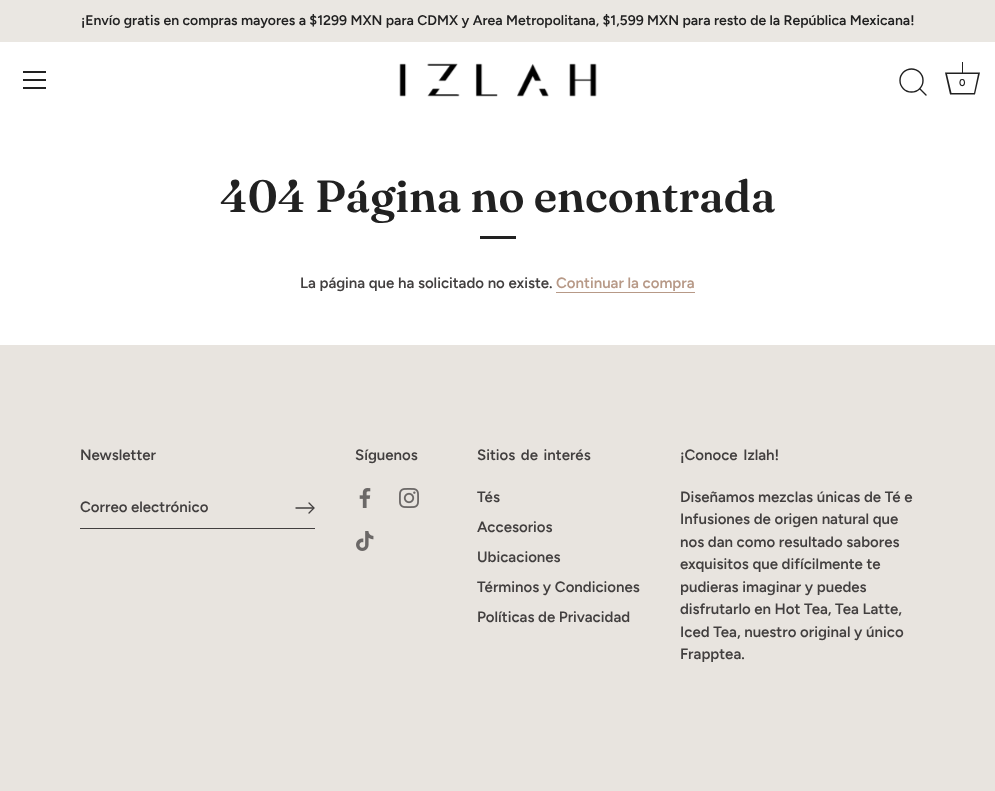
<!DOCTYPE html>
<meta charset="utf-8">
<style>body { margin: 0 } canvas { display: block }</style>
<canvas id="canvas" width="995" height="791"></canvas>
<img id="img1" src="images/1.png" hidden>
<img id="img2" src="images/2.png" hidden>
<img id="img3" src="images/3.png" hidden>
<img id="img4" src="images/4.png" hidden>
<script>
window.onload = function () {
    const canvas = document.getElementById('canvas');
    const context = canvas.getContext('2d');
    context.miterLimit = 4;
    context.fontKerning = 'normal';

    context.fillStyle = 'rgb(255, 255, 255)';
    context.fillRect(0, 0, 995, 791);
    context.fillStyle = 'rgb(234, 231, 226)';
    context.fillRect(0, 0, 995, 42);
    context.fillStyle = 'rgb(33, 33, 33)';
    context.fillRect(23, 71, 23, 2);
    context.fillRect(23, 79, 23, 2);
    context.fillRect(23, 87, 23, 2);
    context.drawImage(document.getElementById('img1'), 399, 63, 198, 34);
    context.beginPath();
    context.arc(911.5, 80.5, 11.5, 0, 2 * Math.PI);
    context.strokeStyle = 'rgb(33, 33, 33)';
    context.lineWidth = 1.4;
    context.stroke();
    context.beginPath();
    context.moveTo(926, 95);
    context.lineTo(920, 89);
    context.lineCap = 'round';
    context.lineJoin = 'round';
    context.stroke();
    context.beginPath();
    context.moveTo(978, 74);
    context.lineTo(974, 93);
    context.lineTo(951.5, 93);
    context.lineTo(947, 74);
    context.lineTo(978, 74);
    context.moveTo(980, 72.5);
    context.lineTo(945, 72.5);
    context.lineTo(950, 94.5);
    context.lineTo(975, 94.5);
    context.closePath();
    context.fill();
    context.fillRect(962, 62, 1, 11);
    context.fillRect(480, 236, 36, 3);
    context.fillStyle = 'rgb(183, 153, 135)';
    context.fillRect(556, 292, 139, 1);
    context.fillStyle = 'rgb(232, 228, 223)';
    context.fillRect(0, 345, 995, 446);
    context.fillStyle = 'rgb(66, 63, 63)';
    context.fillRect(80, 528, 235, 1);
    context.beginPath();
    context.moveTo(309, 513);
    context.lineTo(314, 508);
    context.lineTo(309, 503);
    context.strokeStyle = 'rgb(66, 63, 63)';
    context.lineWidth = 1.3;
    context.lineJoin = 'miter';
    context.stroke();
    context.beginPath();
    context.moveTo(313, 508);
    context.lineTo(296, 508);
    context.lineJoin = 'round';
    context.stroke();
    context.drawImage(document.getElementById('img2'), 359, 488, 12, 20);
    context.drawImage(document.getElementById('img3'), 399, 488, 20, 20);
    context.drawImage(document.getElementById('img4'), 356, 531, 18, 20);
    context.font = '600 14px Figtree';
    context.fillStyle = 'rgb(33, 33, 33)';
    context.fillText('¡Envío gratis en compras mayores a $1299 MXN para CDMX y Area Metropolitana, $1,599 MXN para resto de la República Mexicana!', 81, 25);
    context.font = '600 10px Figtree';
    context.fillText('0', 959, 86);
    context.font = '600 45px Fraunces';
    context.fillText('404 Página no encontrada', 220, 212);
    context.font = '600 15px Figtree';
    context.fillStyle = 'rgb(66, 63, 63)';
    context.fillText('La página que ha solicitado no existe.', 300, 288);
    context.fillStyle = 'rgb(183, 153, 135)';
    context.fillText('Continuar la compra', 556, 288);
    context.fillStyle = 'rgb(66, 63, 63)';
    context.fillText('Newsletter', 80, 460);
    context.fillText('Correo electrónico', 80, 512);
    context.fillText('Síguenos', 355, 460);
    context.wordSpacing = '2px';
    context.fillText('Sitios de interés', 477, 460);
    context.wordSpacing = '0px';
    context.fillText('Tés', 477, 502);
    context.fillText('Accesorios', 477, 532);
    context.fillText('Ubicaciones', 477, 562);
    context.fillText('Términos y Condiciones', 477, 592);
    context.fillText('Políticas de Privacidad', 477, 622);
    context.wordSpacing = '2px';
    context.fillText('¡Conoce Izlah!', 680, 460);
    context.wordSpacing = '0px';
    context.fillText('Diseñamos mezclas únicas de Té e', 680, 502);
    context.fillText('Infusiones de origen natural que', 680, 524);
    context.fillText('nos dan como resultado sabores', 680, 547);
    context.fillText('exquisitos que difícilmente te', 680, 569);
    context.fillText('pudieras imaginar y puedes', 680, 592);
    context.fillText('disfrutarlo en Hot Tea, Tea Latte,', 680, 614);
    context.fillText('Iced Tea, nuestro original y único', 680, 637);
    context.fillText('Frapptea.', 680, 659);
};
</script>
